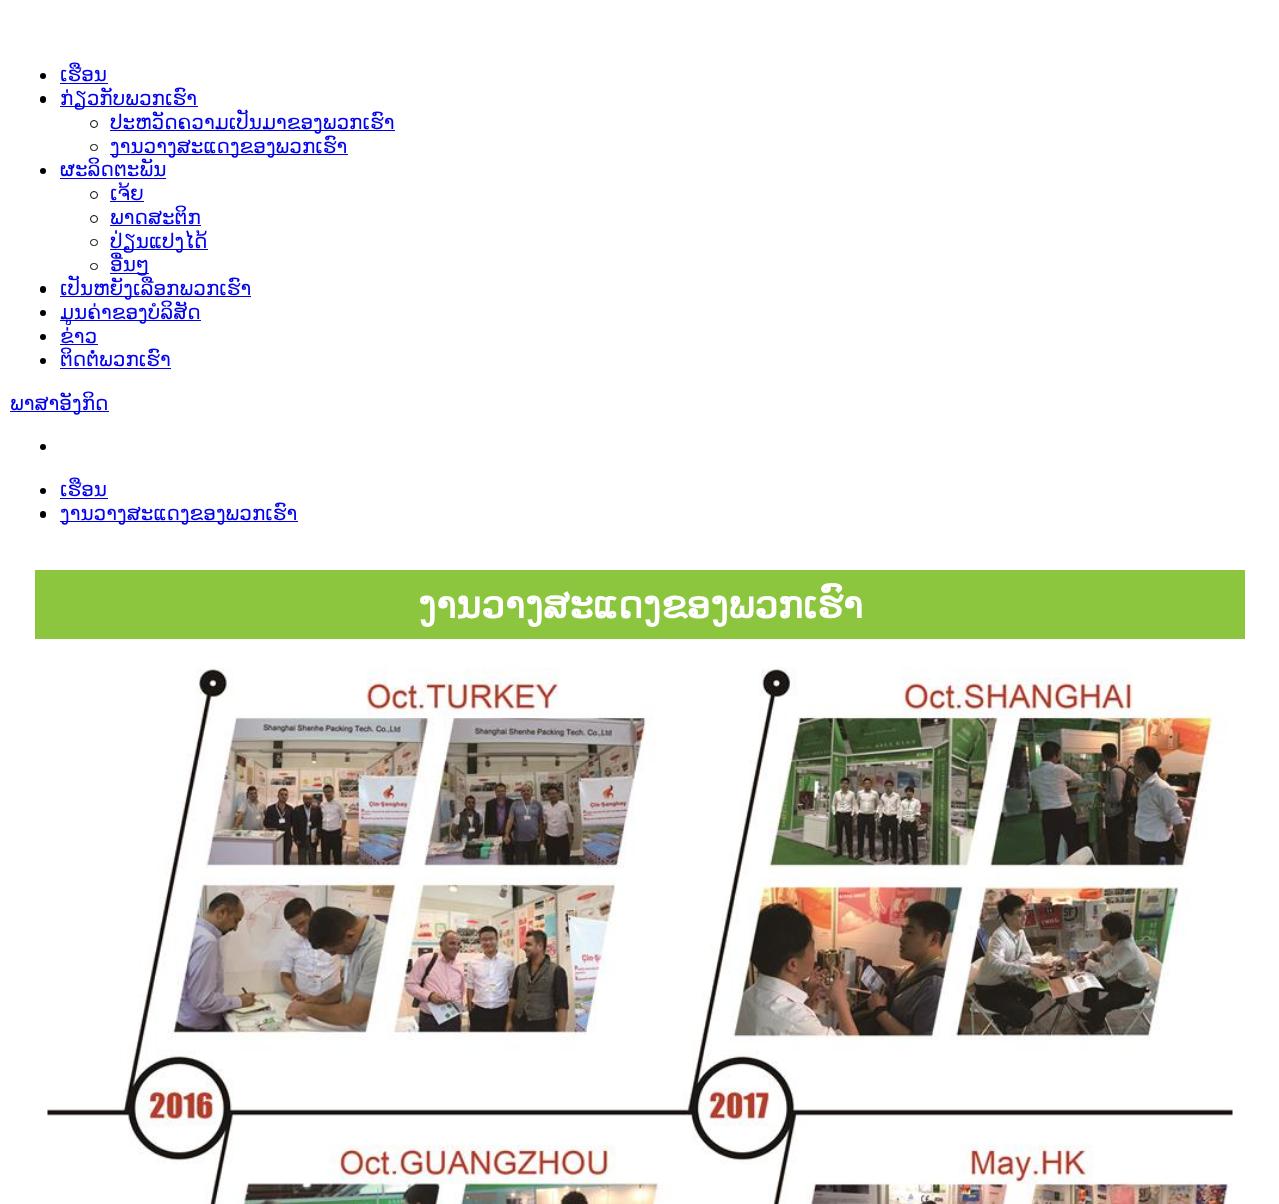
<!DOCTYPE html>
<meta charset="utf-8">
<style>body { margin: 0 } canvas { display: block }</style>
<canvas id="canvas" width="1279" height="1204"></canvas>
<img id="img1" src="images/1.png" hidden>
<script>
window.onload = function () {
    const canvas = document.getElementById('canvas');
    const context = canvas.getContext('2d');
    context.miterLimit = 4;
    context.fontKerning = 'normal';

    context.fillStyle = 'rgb(255, 255, 255)';
    context.fillRect(0, 0, 1279, 1204);
    context.fillStyle = 'rgb(0, 0, 0)';
    context.beginPath();
    context.arc(43, 76, 3, 0, 2 * Math.PI);
    context.fill();
    context.fillStyle = 'rgb(0, 0, 238)';
    context.fillRect(60, 83, 48, 1);
    context.fillStyle = 'rgb(0, 0, 0)';
    context.beginPath();
    context.roundRect(40, 96, 6, 7, 3);
    context.fill();
    context.fillStyle = 'rgb(0, 0, 238)';
    context.fillRect(60, 106, 138, 1);
    context.beginPath();
    context.arc(94, 124, 3.5, 0, 2 * Math.PI);
    context.strokeStyle = 'rgb(0, 0, 0)';
    context.stroke();
    context.fillRect(110, 130, 285, 1);
    context.beginPath();
    context.roundRect(90.5, 144.5, 7, 6, 3);
    context.stroke();
    context.fillRect(110, 154, 238, 1);
    context.fillStyle = 'rgb(0, 0, 0)';
    context.beginPath();
    context.arc(43, 171, 3, 0, 2 * Math.PI);
    context.fill();
    context.fillStyle = 'rgb(0, 0, 238)';
    context.fillRect(60, 178, 106, 1);
    context.beginPath();
    context.arc(94, 195, 3.5, 0, 2 * Math.PI);
    context.stroke();
    context.fillRect(110, 201, 34, 1);
    context.beginPath();
    context.arc(94, 219, 3.5, 0, 2 * Math.PI);
    context.stroke();
    context.fillRect(110, 225, 91, 1);
    context.beginPath();
    context.roundRect(90.5, 239.5, 7, 6, 3);
    context.stroke();
    context.fillRect(110, 249, 98, 1);
    context.beginPath();
    context.roundRect(90.5, 263.5, 7, 6, 3);
    context.stroke();
    context.fillRect(110, 273, 39, 1);
    context.fillStyle = 'rgb(0, 0, 0)';
    context.beginPath();
    context.roundRect(40, 286, 6, 7, 3);
    context.fill();
    context.fillStyle = 'rgb(0, 0, 238)';
    context.fillRect(60, 296, 191, 1);
    context.fillStyle = 'rgb(0, 0, 0)';
    context.beginPath();
    context.arc(43, 313, 3, 0, 2 * Math.PI);
    context.fill();
    context.fillStyle = 'rgb(0, 0, 238)';
    context.fillRect(60, 320, 141, 1);
    context.fillStyle = 'rgb(0, 0, 0)';
    context.beginPath();
    context.arc(43, 337, 3, 0, 2 * Math.PI);
    context.fill();
    context.fillStyle = 'rgb(0, 0, 238)';
    context.fillRect(60, 344, 38, 1);
    context.fillStyle = 'rgb(0, 0, 0)';
    context.beginPath();
    context.arc(43, 361, 3, 0, 2 * Math.PI);
    context.fill();
    context.fillStyle = 'rgb(0, 0, 238)';
    context.fillRect(60, 368, 111, 1);
    context.fillRect(10, 411, 99, 1);
    context.fillStyle = 'rgb(0, 0, 0)';
    context.beginPath();
    context.arc(43, 447, 3, 0, 2 * Math.PI);
    context.fill();
    context.beginPath();
    context.arc(43, 491, 3, 0, 2 * Math.PI);
    context.fill();
    context.fillStyle = 'rgb(0, 0, 238)';
    context.fillRect(60, 498, 48, 1);
    context.fillStyle = 'rgb(0, 0, 0)';
    context.beginPath();
    context.roundRect(40, 511, 6, 7, 3);
    context.fill();
    context.fillStyle = 'rgb(0, 0, 238)';
    context.fillRect(60, 521, 238, 1);
    context.fillStyle = 'rgb(140, 198, 62)';
    context.fillRect(35, 570, 1210, 69);
    context.drawImage(document.getElementById('img1'), 47, 667, 1186, 537);
    context.font = '20px DejaVu Sans';
    context.fillStyle = 'rgb(0, 0, 238)';
    context.fillText('ເຮືອນ', 60, 81);
    context.fillText('ກ່ຽວກັບພວກເຮົາ', 60, 105);
    context.fillText('ປະຫວັດຄວາມເປັນມາຂອງພວກເຮົາ', 110, 129);
    context.fillText('ງານວາງສະແດງຂອງພວກເຮົາ', 110, 153);
    context.fillText('ຜະລິດຕະພັນ', 60, 176);
    context.fillText('ເຈ້ຍ', 110, 200);
    context.fillText('ພາດສະຕິກ', 110, 224);
    context.fillText('ປ່ຽນແປງໄດ້', 110, 248);
    context.fillText('ອື່ນໆ', 110, 271);
    context.fillText('ເປັນຫຍັງເລືອກພວກເຮົາ', 60, 295);
    context.fillText('ມູນຄ່າຂອງບໍລິສັດ', 60, 319);
    context.fillText('ຂ່າວ', 60, 343);
    context.fillText('ຕິດຕໍ່ພວກເຮົາ', 60, 366);
    context.fillText('ພາສາອັງກິດ', 10, 410);
    context.fillText('ເຮືອນ', 60, 496);
    context.fillText('ງານວາງສະແດງຂອງພວກເຮົາ', 60, 520);
    context.font = 'bold 37.5px DejaVu Sans';
    context.fillStyle = 'rgb(255, 255, 255)';
    context.fillText('ງານວາງສະແດງຂອງພວກເຮົາ', 418, 618);
};
</script>
